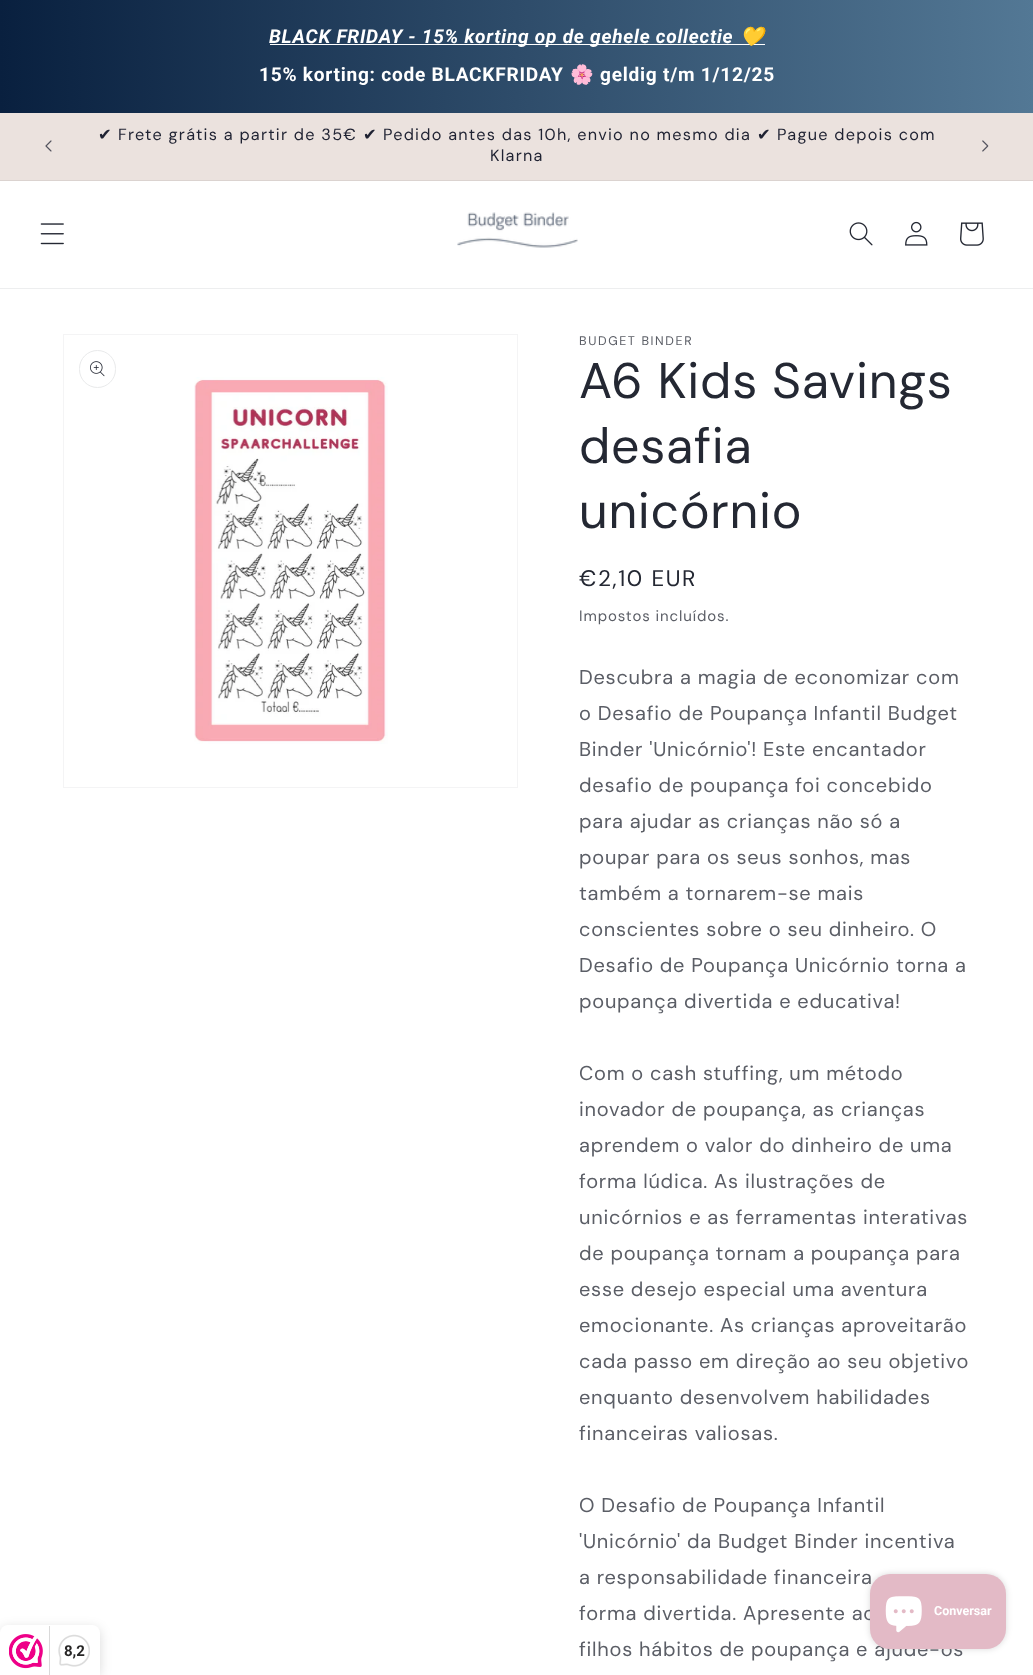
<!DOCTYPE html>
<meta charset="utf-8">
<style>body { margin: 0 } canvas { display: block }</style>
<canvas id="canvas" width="1033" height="1675"></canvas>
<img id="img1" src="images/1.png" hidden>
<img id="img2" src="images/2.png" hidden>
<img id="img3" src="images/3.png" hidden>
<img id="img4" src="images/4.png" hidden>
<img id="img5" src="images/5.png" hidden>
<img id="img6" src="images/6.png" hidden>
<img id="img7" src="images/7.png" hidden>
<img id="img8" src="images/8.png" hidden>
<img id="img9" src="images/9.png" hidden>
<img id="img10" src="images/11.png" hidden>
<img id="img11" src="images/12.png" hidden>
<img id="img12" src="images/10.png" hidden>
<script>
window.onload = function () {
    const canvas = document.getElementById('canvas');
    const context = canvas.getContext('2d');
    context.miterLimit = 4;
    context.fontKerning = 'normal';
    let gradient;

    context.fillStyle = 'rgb(255, 255, 255)';
    context.fillRect(0, 0, 1033, 1675);
    gradient = context.createLinearGradient(0, 56, 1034, 56);
    gradient.addColorStop(0, 'rgb(9, 32, 63)');
    gradient.addColorStop(1, 'rgb(83, 120, 149)');
    context.fillStyle = gradient;
    context.fillRect(0, 0, 1033, 113);
    context.fillStyle = 'rgb(255, 255, 255)';
    context.fillRect(270, 44, 495, 1);
    context.fillStyle = 'rgb(235, 226, 222)';
    context.fillRect(0, 113, 1033, 67);
    context.fillStyle = 'rgb(219, 211, 208)';
    context.fillRect(0, 180, 1033, 1);
    context.drawImage(document.getElementById('img1'), 45, 140, 7, 12);
    context.drawImage(document.getElementById('img2'), 982, 140, 7, 12);
    context.fillStyle = 'rgb(237, 238, 239)';
    context.fillRect(0, 288, 1033, 1);
    context.drawImage(document.getElementById('img3'), 40, 223, 24, 22);
    context.drawImage(document.getElementById('img4'), 457, 212, 121, 36);
    context.drawImage(document.getElementById('img5'), 849, 222, 24, 24);
    context.drawImage(document.getElementById('img6'), 905, 221, 23, 25);
    context.drawImage(document.getElementById('img7'), 960, 222, 24, 24);
    context.strokeStyle = 'rgb(244, 244, 245)';
    context.strokeRect(63.5, 334.5, 454, 453);
    context.beginPath();
    context.roundRect(79.5, 350.5, 36, 37, 18);
    context.strokeStyle = 'rgb(233, 234, 235)';
    context.stroke();
    context.drawImage(document.getElementById('img8'), 90, 361, 15, 16);
    context.drawImage(document.getElementById('img9'), 194, 377, 194, 367);
    context.fillStyle = 'rgba(0, 0, 0, 0.15)';
    context.filter = 'blur(3px)';
    context.beginPath();
    context.roundRect(870, 1574, 136, 75, 20);
    context.fill();
    context.filter = 'none';
    context.filter = 'blur(6px)';
    context.beginPath();
    context.roundRect(0, 1628, 100, 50, 8);
    context.fill();
    context.filter = 'none';
    context.fillStyle = 'rgb(255, 255, 255)';
    context.beginPath();
    context.roundRect(0, 1625, 100, 50, [8, 8, 0, 0]);
    context.fill();
    context.drawImage(document.getElementById('img10'), 9, 1634, 34, 35);
    context.fillStyle = 'rgb(217, 217, 217)';
    context.fillRect(49, 1626, 1, 49);
    context.drawImage(document.getElementById('img11'), 58, 1634, 32, 33);
    context.letterSpacing = '0.75px';
    context.font = 'italic bold 19.1px Roboto';
    context.fillStyle = 'rgb(255, 255, 255)';
    context.fillText('BLACK FRIDAY - 15% korting op de gehele collectie', 269, 43);
    context.font = 'italic bold 19.1px Noto Color Emoji';
    context.fillText('💛', 740, 43);
    context.font = 'bold 19.1px Roboto';
    context.fillText('15% korting: code BLACKFRIDAY', 259, 81);
    context.font = 'bold 19.1px Noto Color Emoji';
    context.fillText('🌸', 570, 81);
    context.font = 'bold 19.1px Roboto';
    context.fillText('geldig t/m 1/12/25', 600, 81);
    context.letterSpacing = '1.25px';
    context.font = '16.25px DejaVu Sans';
    context.fillStyle = 'rgb(31, 34, 50)';
    context.fillText('✔', 98, 140);
    context.font = '16.25px DM Sans';
    context.fillText('Frete grátis a partir de 35€', 118, 140);
    context.font = '16.25px DejaVu Sans';
    context.fillText('✔', 363, 140);
    context.font = '16.25px DM Sans';
    context.fillText('Pedido antes das 10h, envio no mesmo dia', 383, 140);
    context.font = '16.25px DejaVu Sans';
    context.fillText('✔', 757, 140);
    context.font = '16.25px DM Sans';
    context.fillText('Pague depois com', 777, 140);
    context.fillText('Klarna', 490, 161);
    context.letterSpacing = '1.6px';
    context.font = '12.5px DM Sans';
    context.fillStyle = 'rgb(91, 94, 102)';
    context.fillText('BUDGET BINDER', 579, 345);
    context.letterSpacing = '0.75px';
    context.font = '50px DM Sans';
    context.fillStyle = 'rgb(36, 40, 51)';
    context.fillText('A6 Kids Savings', 579, 398);
    context.fillText('desafia', 579, 463);
    context.fillText('unicórnio', 579, 528);
    context.letterSpacing = '1.6px';
    context.font = '22.5px DM Sans';
    context.fillText('€2,10 EUR', 579, 586);
    context.letterSpacing = '0.9px';
    context.font = '15px DM Sans';
    context.fillStyle = 'rgb(91, 94, 102)';
    context.fillText('Impostos incluídos.', 579, 621);
    context.letterSpacing = '0.75px';
    context.font = '20px DM Sans';
    context.fillText('Descubra a magia de economizar com', 579, 684);
    context.fillText('o Desafio de Poupança Infantil Budget', 579, 720);
    context.fillText('Binder \'Unicórnio\'! Este encantador', 579, 756);
    context.fillText('desafio de poupança foi concebido', 579, 792);
    context.fillText('para ajudar as crianças não só a', 579, 828);
    context.fillText('poupar para os seus sonhos, mas', 579, 864);
    context.fillText('também a tornarem-se mais', 579, 900);
    context.fillText('conscientes sobre o seu dinheiro. O', 579, 936);
    context.fillText('Desafio de Poupança Unicórnio torna a', 579, 972);
    context.fillText('poupança divertida e educativa!', 579, 1008);
    context.fillText('Com o cash stuffing, um método', 579, 1080);
    context.fillText('inovador de poupança, as crianças', 579, 1116);
    context.fillText('aprendem o valor do dinheiro de uma', 579, 1152);
    context.fillText('forma lúdica. As ilustrações de', 579, 1188);
    context.fillText('unicórnios e as ferramentas interativas', 579, 1224);
    context.fillText('de poupança tornam a poupança para', 579, 1260);
    context.fillText('esse desejo especial uma aventura', 579, 1296);
    context.fillText('emocionante. As crianças aproveitarão', 579, 1332);
    context.fillText('cada passo em direção ao seu objetivo', 579, 1368);
    context.fillText('enquanto desenvolvem habilidades', 579, 1404);
    context.fillText('financeiras valiosas.', 579, 1440);
    context.fillText('O Desafio de Poupança Infantil', 579, 1512);
    context.fillText('\'Unicórnio\' da Budget Binder incentiva', 579, 1548);
    context.fillText('a responsabilidade financeira', 579, 1584);
    context.fillText('forma divertida. Apresente ao', 579, 1620);
    context.fillText('filhos hábitos de poupança e ajude-os', 579, 1656);
    context.fillStyle = 'rgb(227, 186, 198)';
    context.beginPath();
    context.roundRect(870, 1574, 136, 75, 20);
    context.fill();
    context.drawImage(document.getElementById('img12'), 885, 1596, 37, 37);
    context.letterSpacing = '0px';
    context.font = 'bold 12.5px Roboto';
    context.fillStyle = 'rgb(255, 255, 255)';
    context.fillText('Conversar', 934, 1615);
    context.font = 'bold 15px Roboto';
    context.fillStyle = 'rgb(39, 38, 38)';
    context.fillText('8,2', 64, 1656);
};
</script>
